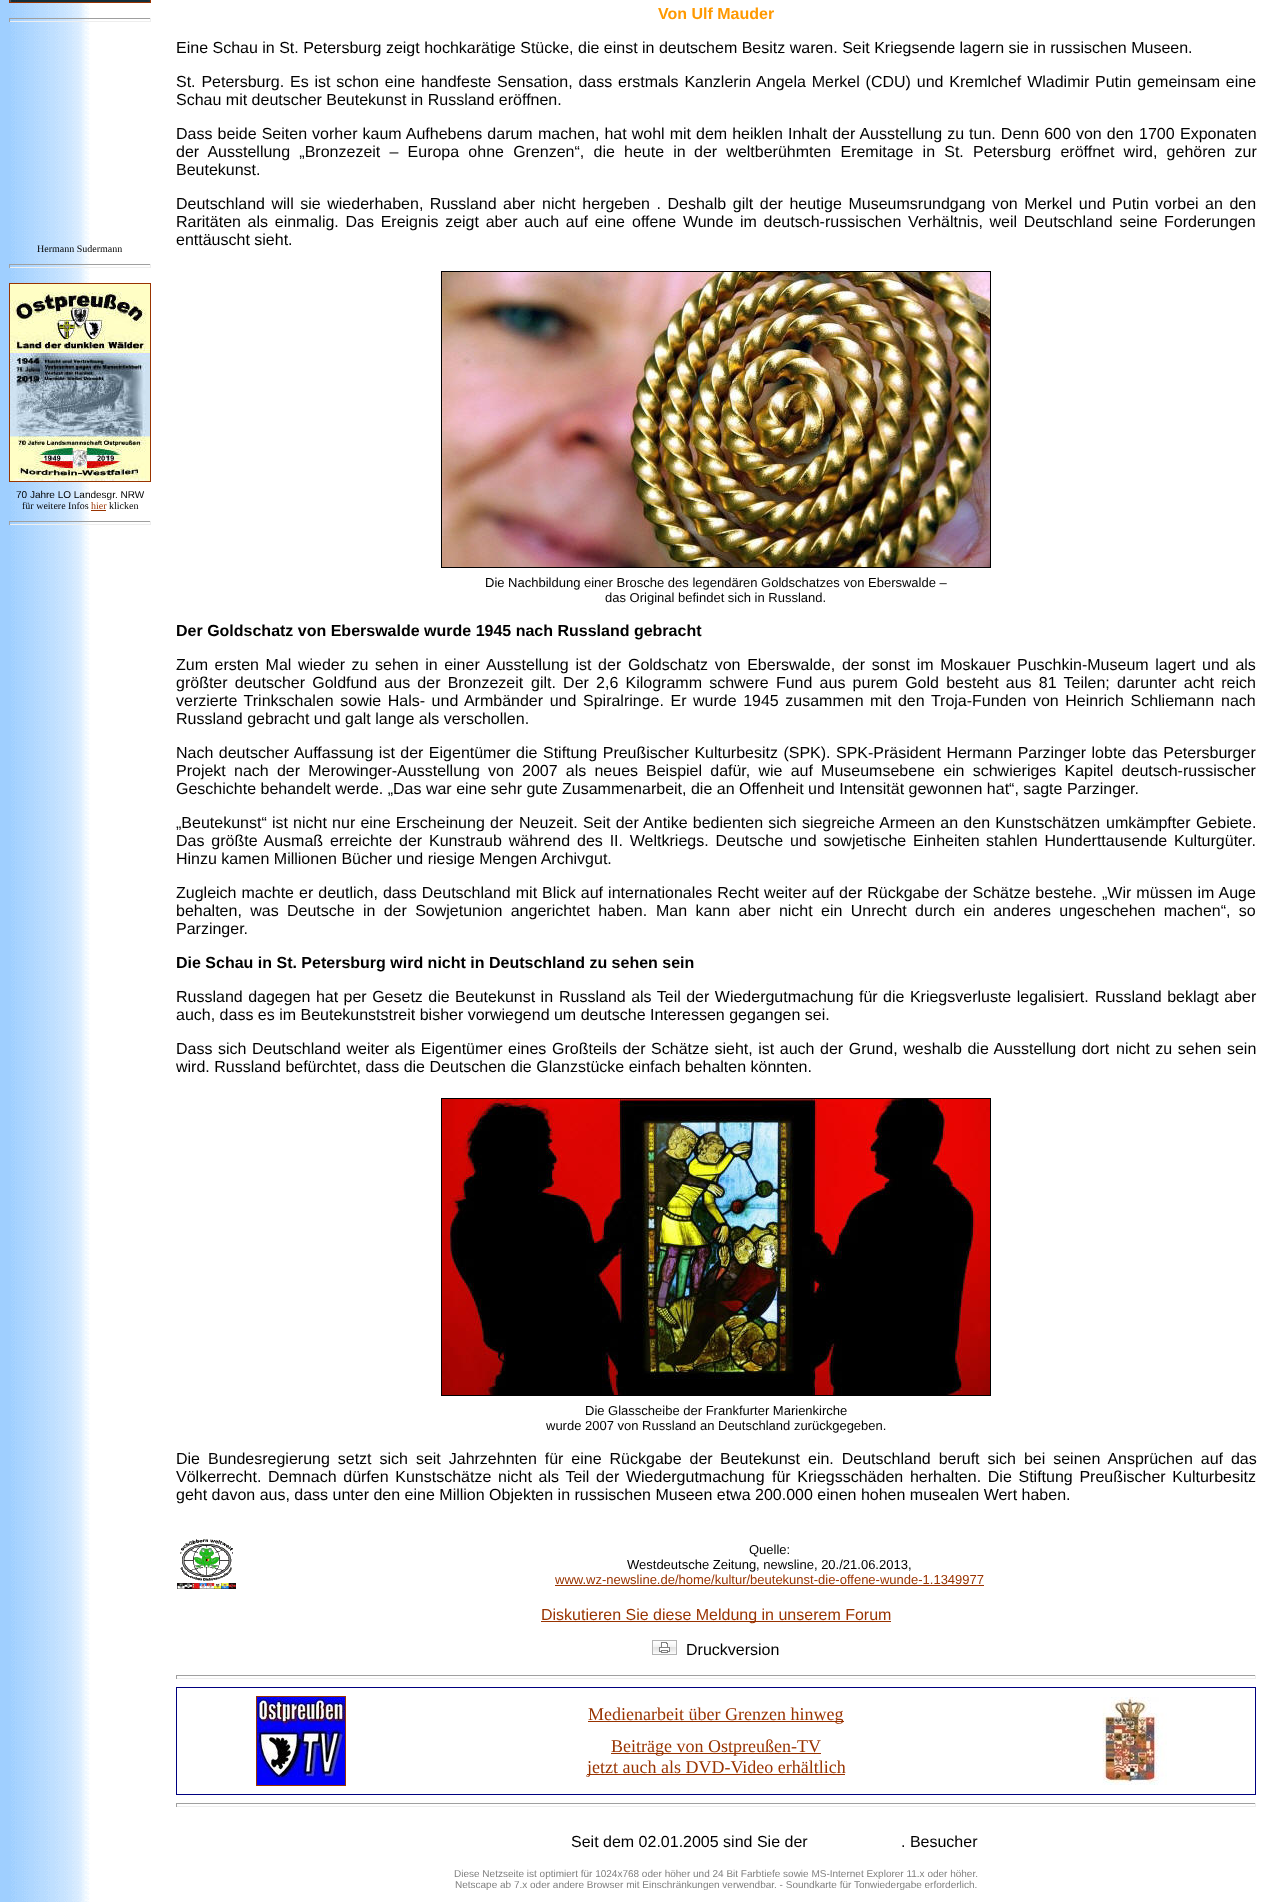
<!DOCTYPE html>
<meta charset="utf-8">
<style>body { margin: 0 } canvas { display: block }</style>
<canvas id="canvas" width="1264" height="1902"></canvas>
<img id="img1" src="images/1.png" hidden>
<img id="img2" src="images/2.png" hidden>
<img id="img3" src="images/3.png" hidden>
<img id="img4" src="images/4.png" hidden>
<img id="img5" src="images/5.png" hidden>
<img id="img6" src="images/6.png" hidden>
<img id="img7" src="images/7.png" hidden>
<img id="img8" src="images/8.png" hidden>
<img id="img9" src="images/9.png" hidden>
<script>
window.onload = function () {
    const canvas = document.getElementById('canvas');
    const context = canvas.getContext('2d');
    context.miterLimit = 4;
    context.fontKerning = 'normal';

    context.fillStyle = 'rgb(255, 255, 255)';
    context.fillRect(0, 0, 1264, 1902);
    context.drawImage(document.getElementById('img1'), 0, 0, 90, 1902);
    context.strokeStyle = 'rgb(153, 51, 0)';
    context.strokeRect(9.5, -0.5, 141, 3);
    context.drawImage(document.getElementById('img2'), 10, 0, 140, 2);
    context.fillStyle = 'rgb(159, 159, 159)';
    context.fillRect(9, 18, 142, 1);
    context.fillStyle = 'rgb(238, 238, 238)';
    context.fillRect(150, 18, 1, 4);
    context.fillRect(9, 21, 142, 1);
    context.fillStyle = 'rgb(159, 159, 159)';
    context.fillRect(9, 18, 1, 4);
    context.fillRect(9, 264, 142, 1);
    context.fillStyle = 'rgb(238, 238, 238)';
    context.fillRect(150, 264, 1, 4);
    context.fillRect(9, 267, 142, 1);
    context.fillStyle = 'rgb(159, 159, 159)';
    context.fillRect(9, 264, 1, 4);
    context.strokeRect(9.5, 283.5, 141, 198);
    context.drawImage(document.getElementById('img3'), 10, 284, 140, 197);
    context.fillStyle = 'rgb(153, 51, 0)';
    context.fillRect(91, 510, 15, 1);
    context.fillStyle = 'rgb(159, 159, 159)';
    context.fillRect(9, 521, 142, 1);
    context.fillStyle = 'rgb(238, 238, 238)';
    context.fillRect(150, 521, 1, 4);
    context.fillRect(9, 524, 142, 1);
    context.fillStyle = 'rgb(159, 159, 159)';
    context.fillRect(9, 521, 1, 4);
    context.strokeStyle = 'rgb(0, 0, 0)';
    context.strokeRect(441.5, 271.5, 549, 296);
    context.drawImage(document.getElementById('img4'), 442, 272, 548, 295);
    context.strokeRect(441.5, 1098.5, 549, 297);
    context.drawImage(document.getElementById('img5'), 442, 1099, 548, 296);
    context.drawImage(document.getElementById('img6'), 177, 1539, 59, 50);
    context.fillStyle = 'rgb(153, 51, 0)';
    context.fillRect(555, 1585, 429, 1);
    context.fillRect(541, 1621, 350, 1);
    context.drawImage(document.getElementById('img7'), 652, 1640, 25, 15);
    context.fillStyle = 'rgb(159, 159, 159)';
    context.fillRect(176, 1675, 1080, 1);
    context.fillStyle = 'rgb(238, 238, 238)';
    context.fillRect(1255, 1675, 1, 4);
    context.fillRect(176, 1678, 1080, 1);
    context.fillStyle = 'rgb(159, 159, 159)';
    context.fillRect(176, 1675, 1, 4);
    context.fillStyle = 'rgb(0, 0, 128)';
    context.fillRect(176, 1687, 1080, 1);
    context.fillRect(1255, 1687, 1, 108);
    context.fillRect(176, 1794, 1080, 1);
    context.fillRect(176, 1687, 1, 108);
    context.strokeStyle = 'rgb(153, 51, 0)';
    context.strokeRect(256.5, 1696.5, 89, 89);
    context.drawImage(document.getElementById('img8'), 257, 1697, 88, 88);
    context.fillStyle = 'rgb(153, 51, 0)';
    context.fillRect(588, 1721, 256, 1);
    context.fillRect(611, 1753, 210, 1);
    context.fillRect(587, 1774, 258, 1);
    context.drawImage(document.getElementById('img9'), 1102, 1697, 65, 88);
    context.fillStyle = 'rgb(159, 159, 159)';
    context.fillRect(176, 1803, 1080, 1);
    context.fillStyle = 'rgb(238, 238, 238)';
    context.fillRect(1255, 1803, 1, 4);
    context.fillRect(176, 1806, 1080, 1);
    context.fillStyle = 'rgb(159, 159, 159)';
    context.fillRect(176, 1803, 1, 4);
    context.font = '10px Liberation Serif';
    context.fillStyle = 'rgb(0, 0, 0)';
    context.fillText('Hermann Sudermann', 37, 252);
    context.font = '10px Liberation Sans';
    context.fillText('70 Jahre LO Landesgr', 16, 498);
    context.fillText('. NRW', 115, 498);
    context.font = '10px Liberation Serif';
    context.fillText('für weitere Infos', 22, 509);
    context.fillStyle = 'rgb(153, 51, 0)';
    context.fillText('hier', 91, 509);
    context.fillStyle = 'rgb(0, 0, 0)';
    context.fillText('klicken', 109, 509);
    context.font = 'bold 16px Liberation Sans';
    context.fillStyle = 'rgb(255, 153, 0)';
    context.fillText('Von Ulf Mauder', 658, 19);
    context.font = '16px Liberation Sans';
    context.fillStyle = 'rgb(0, 0, 0)';
    context.fillText('Eine Schau in St. Petersburg zeigt hochkarätige Stücke, die einst in deutschem Besitz waren. Seit Kriegsende lagern sie in russischen Museen.', 176, 53);
    context.wordSpacing = '1.4px';
    context.fillText('St. Petersburg. Es ist schon eine handfeste', 176, 87);
    context.fillText('Sensation, dass erstmals Kanzlerin Angela Merkel (CDU) und Kremlchef Wladimir', 497, 87);
    context.fillText('Putin gemeinsam eine', 1095, 87);
    context.wordSpacing = '0px';
    context.fillText('Schau mit deutscher Beutekunst in Russland eröffnen.', 176, 105);
    context.wordSpacing = '0.6px';
    context.fillText('Dass beide Seiten vorher kaum Aufhebens darum', 176, 139);
    context.fillText('machen, hat wohl mit dem heiklen Inhalt der Ausstellung zu tun. Denn 600 von den', 538, 139);
    context.wordSpacing = '1px';
    context.fillText('1700 Exponaten', 1139, 139);
    context.wordSpacing = '4.75px';
    context.fillText('der Ausstellung „Bronzezeit – Europa ohne Grenzen“, die heute in', 176, 157);
    context.fillText('der weltberühmten Eremitage in St. Petersburg eröffnet wird, gehören zur', 694, 157);
    context.wordSpacing = '0px';
    context.fillText('Beutekunst.', 176, 175);
    context.wordSpacing = '2.1px';
    context.fillText('Deutschland will sie wiederhaben, Russland aber', 176, 209);
    context.fillText('nicht hergeben . Deshalb gilt der heutige Museumsrundgang von Merkel und Putin', 542, 209);
    context.fillText('vorbei an den', 1155, 209);
    context.wordSpacing = '2.25px';
    context.fillText('Raritäten als einmalig. Das Ereignis zeigt aber auch auf eine', 176, 227);
    context.fillText('offene Wunde im deutsch-russischen Verhältnis, weil Deutschland seine', 632, 227);
    context.wordSpacing = '0px';
    context.fillText('Forderungen', 1164, 227);
    context.fillText('enttäuscht sieht.', 176, 245);
    context.font = '13px Liberation Sans';
    context.fillText('Die Nachbildung einer Brosche des legendären Goldschatzes von Eberswalde –', 485, 587);
    context.fillText('das Original befindet sich in Russland.', 605, 602);
    context.font = 'bold 16px Liberation Sans';
    context.fillText('Der Goldschatz von Eberswalde wurde 1945 nach Russland gebracht', 176, 636);
    context.wordSpacing = '2.1px';
    context.font = '16px Liberation Sans';
    context.fillText('Zum ersten Mal wieder zu sehen in einer', 176, 670);
    context.wordSpacing = '2.25px';
    context.fillText('Ausstellung ist der Goldschatz von Eberswalde, der sonst im Moskauer', 486, 670);
    context.fillText('Puschkin-Museum lagert und als', 1017, 670);
    context.wordSpacing = '2.75px';
    context.fillText('größter deutscher Goldfund aus der Bronzezeit', 176, 688);
    context.fillText('gilt. Der 2,6 Kilogramm schwere Fund aus purem Gold besteht aus 81 Teilen;', 531, 688);
    context.fillText('darunter acht reich', 1117, 688);
    context.wordSpacing = '2.1px';
    context.fillText('verzierte Trinkschalen sowie Hals- und Armbänder und', 176, 706);
    context.fillText('Spiralringe. Er wurde 1945 zusammen mit den Troja-Funden von Heinrich Schliemann', 583, 706);
    context.wordSpacing = '0px';
    context.fillText('nach', 1221, 706);
    context.fillText('Russland gebracht und galt lange als verschollen.', 176, 724);
    context.wordSpacing = '1px';
    context.fillText('Nach deutscher Auffassung ist der Eigentümer die', 176, 758);
    context.fillText('Stiftung Preußischer Kulturbesitz (SPK). SPK-Präsident Hermann Parzinger lobte', 543, 758);
    context.fillText('das Petersburger', 1132, 758);
    context.wordSpacing = '3.75px';
    context.fillText('Projekt nach der Merowinger-Ausstellung von 2007 als neues', 176, 776);
    context.fillText('Beispiel dafür, wie auf Museumsebene ein schwieriges Kapitel deutsch-russischer', 646, 776);
    context.wordSpacing = '0px';
    context.fillText('Geschichte behandelt werde. „Das war eine sehr gute Zusammenarbeit, die an Offenheit und Intensität gewonnen hat“, sagte Parzinger.', 176, 794);
    context.wordSpacing = '0.75px';
    context.fillText('„Beutekunst“ ist nicht nur eine Erscheinung der', 176, 828);
    context.fillText('Neuzeit. Seit der Antike bedienten sich siegreiche Armeen an den Kunstschätzen', 519, 828);
    context.wordSpacing = '1px';
    context.fillText('umkämpfter Gebiete.', 1106, 828);
    context.wordSpacing = '2.4px';
    context.fillText('Das größte Ausmaß erreichte der Kunstraub während des II. Weltkriegs. Deutsche und sowjetische Einheiten', 176, 846);
    context.fillText('stahlen Hunderttausende Kulturgüter.', 986, 846);
    context.wordSpacing = '0px';
    context.fillText('Hinzu kamen Millionen Bücher und riesige Mengen Archivgut.', 176, 864);
    context.wordSpacing = '0.6px';
    context.fillText('Zugleich machte er deutlich, dass Deutschland mit', 176, 898);
    context.fillText('Blick auf internationales Recht weiter auf der Rückgabe der Schätze bestehe.', 542, 898);
    context.fillText('„Wir müssen im Auge', 1102, 898);
    context.wordSpacing = '3.9px';
    context.fillText('behalten, was Deutsche in der Sowjetunion angerichtet haben.', 176, 916);
    context.fillText('Man kann aber nicht ein Unrecht durch ein anderes ungeschehen machen“, so', 656, 916);
    context.wordSpacing = '0px';
    context.fillText('Parzinger.', 176, 934);
    context.font = 'bold 16px Liberation Sans';
    context.fillText('Die Schau in St. Petersburg wird nicht in Deutschland zu sehen sein', 176, 968);
    context.wordSpacing = '1px';
    context.font = '16px Liberation Sans';
    context.fillText('Russland dagegen hat per Gesetz die Beutekunst in', 176, 1002);
    context.fillText('Russland als Teil der Wiedergutmachung für die Kriegsverluste legalisiert.', 559, 1002);
    context.fillText('Russland beklagt aber', 1095, 1002);
    context.wordSpacing = '0px';
    context.fillText('auch, dass es im Beutekunststreit bisher vorwiegend um deutsche Interessen gegangen sei.', 176, 1020);
    context.wordSpacing = '1.1px';
    context.fillText('Dass sich Deutschland weiter als Eigentümer eines', 176, 1054);
    context.fillText('Großteils der Schätze sieht, ist auch der Grund, weshalb die Ausstellung dort', 552, 1054);
    context.fillText('nicht zu sehen sein', 1116, 1054);
    context.wordSpacing = '0px';
    context.fillText('wird. Russland befürchtet, dass die Deutschen die Glanzstücke einfach behalten könnten.', 176, 1072);
    context.font = '13px Liberation Sans';
    context.fillText('Die Glasscheibe der Frankfurter Marienkirche', 585, 1415);
    context.fillText('wurde 2007 von Russland an Deutschland zurückgegeben.', 546, 1430);
    context.wordSpacing = '3.5px';
    context.font = '16px Liberation Sans';
    context.fillText('Die Bundesregierung setzt sich seit Jahrzehnten für eine Rückgabe der', 176, 1464);
    context.fillText('Beutekunst ein. Deutschland beruft sich bei seinen Ansprüchen auf das', 720, 1464);
    context.wordSpacing = '2.25px';
    context.fillText('Völkerrecht. Demnach dürfen Kunstschätze nicht als Teil der Wiedergutmachung', 176, 1482);
    context.fillText('für Kriegsschäden herhalten. Die Stiftung Preußischer Kulturbesitz', 772, 1482);
    context.wordSpacing = '0px';
    context.fillText('geht davon aus, dass unter den eine Million Objekten in russischen Museen etwa 200.000 einen hohen musealen Wert haben.', 176, 1500);
    context.font = '13px Liberation Sans';
    context.fillText('Quelle:', 749, 1554);
    context.fillText('Westdeutsche Zeitung, newsline, 20./21.06.2013,', 627, 1569);
    context.fillStyle = 'rgb(153, 51, 0)';
    context.fillText('www.wz-newsline.de/home/kultur/beutekunst-die-offene-wunde-1.1349977', 555, 1584);
    context.font = '16px Liberation Sans';
    context.fillText('Diskutieren Sie diese Meldung in unserem Forum', 541, 1620);
    context.fillStyle = 'rgb(0, 0, 0)';
    context.fillText('Druckversion', 686, 1655);
    context.font = '18px Liberation Serif';
    context.fillStyle = 'rgb(153, 51, 0)';
    context.fillText('Medienarbeit über Grenzen hinweg', 588, 1720);
    context.fillText('Beiträge von Ostpreußen-TV', 611, 1752);
    context.fillText('jetzt auch als DVD-Video erhältlich', 587, 1773);
    context.font = '16px Liberation Sans';
    context.fillStyle = 'rgb(0, 0, 0)';
    context.fillText('Seit dem 02.01.2005 sind Sie der', 571, 1847);
    context.fillText('. Besucher', 901, 1847);
    context.font = '10px Liberation Sans';
    context.fillStyle = 'rgb(128, 128, 128)';
    context.fillText('Diese Netzseite ist optimiert für 1024x768 oder höher und 24 Bit Farbtiefe sowie MS-Internet Explorer 11.x oder höher.', 454, 1877);
    context.fillText('Netscape ab 7.x oder andere Browser mit Einschränkungen verwendbar. - Soundkarte für Tonwiedergabe erforderlich.', 455, 1888);
};
</script>
